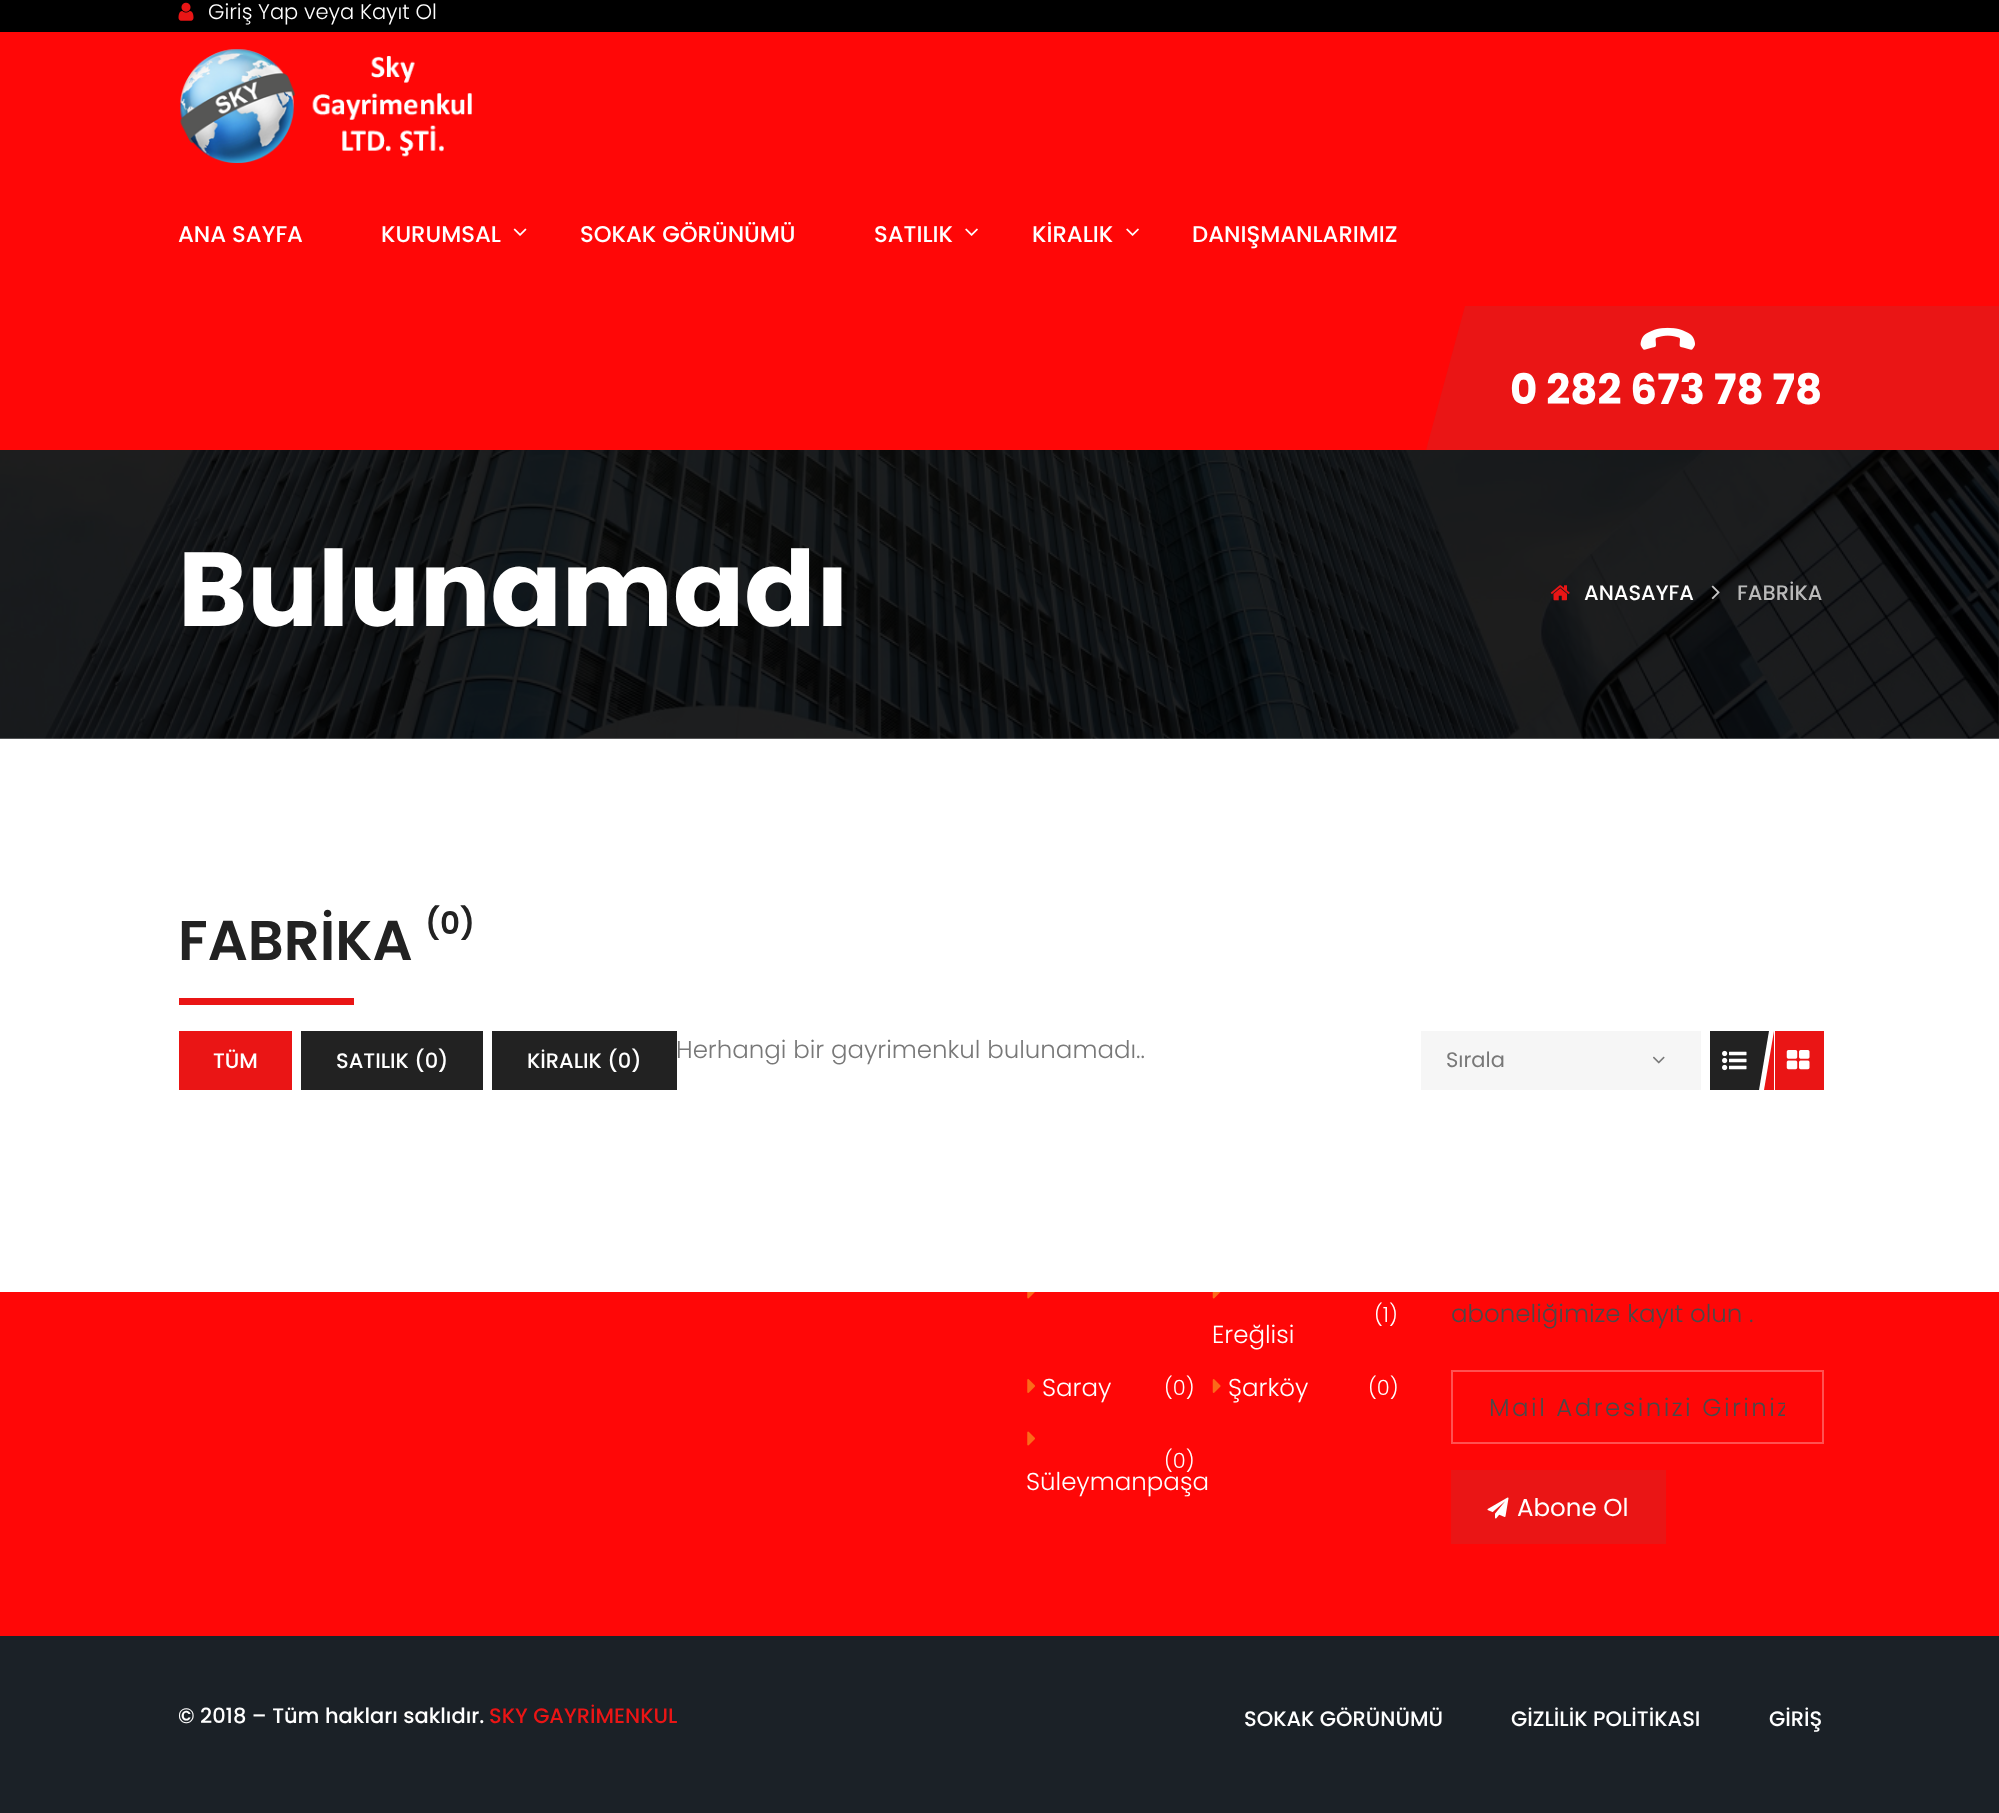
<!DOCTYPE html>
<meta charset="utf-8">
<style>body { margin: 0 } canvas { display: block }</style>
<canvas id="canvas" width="1999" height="1813"></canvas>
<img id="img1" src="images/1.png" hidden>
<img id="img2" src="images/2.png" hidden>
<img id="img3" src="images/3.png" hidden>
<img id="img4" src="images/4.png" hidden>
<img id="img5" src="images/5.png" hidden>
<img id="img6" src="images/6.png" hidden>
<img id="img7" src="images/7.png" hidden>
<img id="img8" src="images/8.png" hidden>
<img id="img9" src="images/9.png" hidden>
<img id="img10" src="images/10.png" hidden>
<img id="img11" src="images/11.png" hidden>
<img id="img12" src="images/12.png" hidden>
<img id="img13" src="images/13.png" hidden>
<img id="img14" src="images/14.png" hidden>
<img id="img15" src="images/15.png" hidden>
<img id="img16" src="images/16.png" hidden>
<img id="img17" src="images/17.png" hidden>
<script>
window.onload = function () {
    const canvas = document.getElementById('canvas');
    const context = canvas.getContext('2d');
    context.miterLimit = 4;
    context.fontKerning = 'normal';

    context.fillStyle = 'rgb(255, 7, 7)';
    context.fillRect(0, 0, 1999, 1813);
    context.fillStyle = 'rgb(255, 255, 255)';
    context.fillRect(0, 738, 1999, 554);
    context.fillStyle = 'rgb(0, 0, 0)';
    context.fillRect(0, 0, 1999, 32);
    context.drawImage(document.getElementById('img1'), 178, 2, 16, 19);
    context.drawImage(document.getElementById('img2'), 180, 49, 292, 114);
    context.drawImage(document.getElementById('img3'), 513, 228, 14, 8);
    context.drawImage(document.getElementById('img4'), 965, 228, 13, 8);
    context.drawImage(document.getElementById('img4'), 1126, 228, 13, 8);
    context.fillStyle = 'rgb(234, 21, 21)';
    context.fillRect(1465, 306, 534, 144);
    context.beginPath();
    context.moveTo(1465, 450);
    context.lineTo(1426, 450);
    context.lineTo(1465, 306);
    context.closePath();
    context.fill();
    context.drawImage(document.getElementById('img5'), 1640, 327, 55, 23);
    context.drawImage(document.getElementById('img6'), 0, 450, 1999, 289);
    context.drawImage(document.getElementById('img7'), 1550, 585, 20, 16);
    context.drawImage(document.getElementById('img8'), 1711, 585, 9, 15);
    context.fillRect(179, 998, 175, 7);
    context.fillRect(179, 1031, 113, 59);
    context.fillStyle = 'rgb(34, 34, 34)';
    context.fillRect(301, 1031, 182, 59);
    context.fillRect(492, 1031, 185, 59);
    context.fillStyle = 'rgb(246, 246, 246)';
    context.fillRect(1421, 1031, 280, 59);
    context.drawImage(document.getElementById('img9'), 1653, 1056, 12, 8);
    context.fillStyle = 'rgb(34, 34, 34)';
    context.fillRect(1710, 1031, 49, 59);
    context.drawImage(document.getElementById('img10'), 1722, 1050, 25, 21);
    context.beginPath();
    context.moveTo(1759, 1031);
    context.lineTo(1769, 1031);
    context.lineTo(1759, 1090);
    context.closePath();
    context.fill();
    context.fillStyle = 'rgb(234, 21, 21)';
    context.fillRect(1775, 1031, 49, 59);
    context.beginPath();
    context.moveTo(1774, 1090);
    context.lineTo(1764, 1090);
    context.lineTo(1774, 1031);
    context.closePath();
    context.fill();
    context.drawImage(document.getElementById('img11'), 1786, 1050, 24, 20);
    context.drawImage(document.getElementById('img12'), 1027, 1292, 8, 7);
    context.drawImage(document.getElementById('img13'), 1212, 1292, 9, 7);
    context.drawImage(document.getElementById('img14'), 1027, 1379, 8, 14);
    context.drawImage(document.getElementById('img15'), 1212, 1379, 9, 14);
    context.drawImage(document.getElementById('img16'), 1027, 1431, 8, 15);
    context.strokeStyle = 'rgb(255, 81, 81)';
    context.lineWidth = 2;
    context.strokeRect(1452, 1371, 371, 72);
    context.beginPath();
    context.rect(1453, 1472, 211, 70);
    context.fill();
    context.strokeStyle = 'rgb(234, 21, 21)';
    context.lineWidth = 4;
    context.stroke();
    context.drawImage(document.getElementById('img17'), 1487, 1497, 22, 22);
    context.fillStyle = 'rgb(27, 33, 39)';
    context.fillRect(0, 1636, 1999, 177);
    context.font = '300 21px Poppins';
    context.fillStyle = 'rgb(255, 255, 255)';
    context.fillText('Giriş Yap veya Kayıt Ol', 208, 19);
    context.font = '500 22.75px Poppins';
    context.fillText('ANA SAYFA', 178, 242);
    context.fillText('KURUMSAL', 381, 242);
    context.fillText('SOKAK GÖRÜNÜMÜ', 580, 242);
    context.fillText('SATILIK', 874, 242);
    context.fillText('KİRALIK', 1032, 242);
    context.fillText('DANIŞMANLARIMIZ', 1192, 242);
    context.font = 'bold 42px Poppins';
    context.fillText('0 282 673 78 78', 1510, 404);
    context.font = 'bold 105px Poppins';
    context.fillText('Bulunamadı', 178, 626);
    context.font = '500 21px Poppins';
    context.fillText('ANASAYFA', 1584, 600);
    context.fillStyle = 'rgb(186, 186, 186)';
    context.fillText('FABRİKA', 1737, 600);
    context.font = '600 56px Poppins';
    context.fillStyle = 'rgb(34, 34, 34)';
    context.fillText('FABRİKA', 178, 960);
    context.font = '600 31px Poppins';
    context.fillText('(0)', 425, 934);
    context.font = '500 21px Poppins';
    context.fillStyle = 'rgb(255, 255, 255)';
    context.fillText('TÜM', 213, 1068);
    context.fillText('SATILIK (0)', 336, 1068);
    context.fillText('KİRALIK (0)', 527, 1068);
    context.font = '21px Poppins';
    context.fillStyle = 'rgb(120, 120, 120)';
    context.fillText('Sırala', 1446, 1067);
    context.font = '300 24.5px Poppins';
    context.fillText('Herhangi bir gayrimenkul bulunamadı..', 676, 1058);
    context.font = '300 21px Poppins';
    context.fillStyle = 'rgb(255, 255, 255)';
    context.fillText('(1)', 1374, 1322);
    context.font = '300 24.5px Poppins';
    context.fillText('Ereğlisi', 1212, 1343);
    context.fillText('Saray', 1042, 1396);
    context.font = '300 21px Poppins';
    context.fillText('(0)', 1164, 1395);
    context.font = '300 24.5px Poppins';
    context.fillText('Şarköy', 1228, 1396);
    context.font = '300 21px Poppins';
    context.fillText('(0)', 1368, 1395);
    context.fillText('(0)', 1164, 1468);
    context.font = '300 24.5px Poppins';
    context.fillText('Süleymanpaşa', 1026, 1490);
    context.fillStyle = 'rgb(74, 74, 74)';
    context.fillText('aboneliğimize kayıt olun .', 1451, 1322);
    context.save();
    context.beginPath();
    context.rect(1489, 1390, 296, 36);
    context.clip();
    context.letterSpacing = '2.45px';
    context.fillText('Mail Adresinizi Giriniz', 1489, 1416);
    context.restore();
    context.font = '24.5px Poppins';
    context.fillStyle = 'rgb(255, 255, 255)';
    context.fillText('Abone Ol', 1517, 1516);
    context.font = '500 21px Poppins';
    context.fillText('© 2018 – Tüm hakları saklıdır.', 178, 1723);
    context.fillStyle = 'rgb(234, 21, 21)';
    context.fillText('SKY GAYRİMENKUL', 489, 1723);
    context.fillStyle = 'rgb(255, 255, 255)';
    context.fillText('SOKAK GÖRÜNÜMÜ', 1244, 1726);
    context.fillText('GİZLİLİK POLİTİKASI', 1511, 1726);
    context.fillText('GİRİŞ', 1769, 1726);
};
</script>
